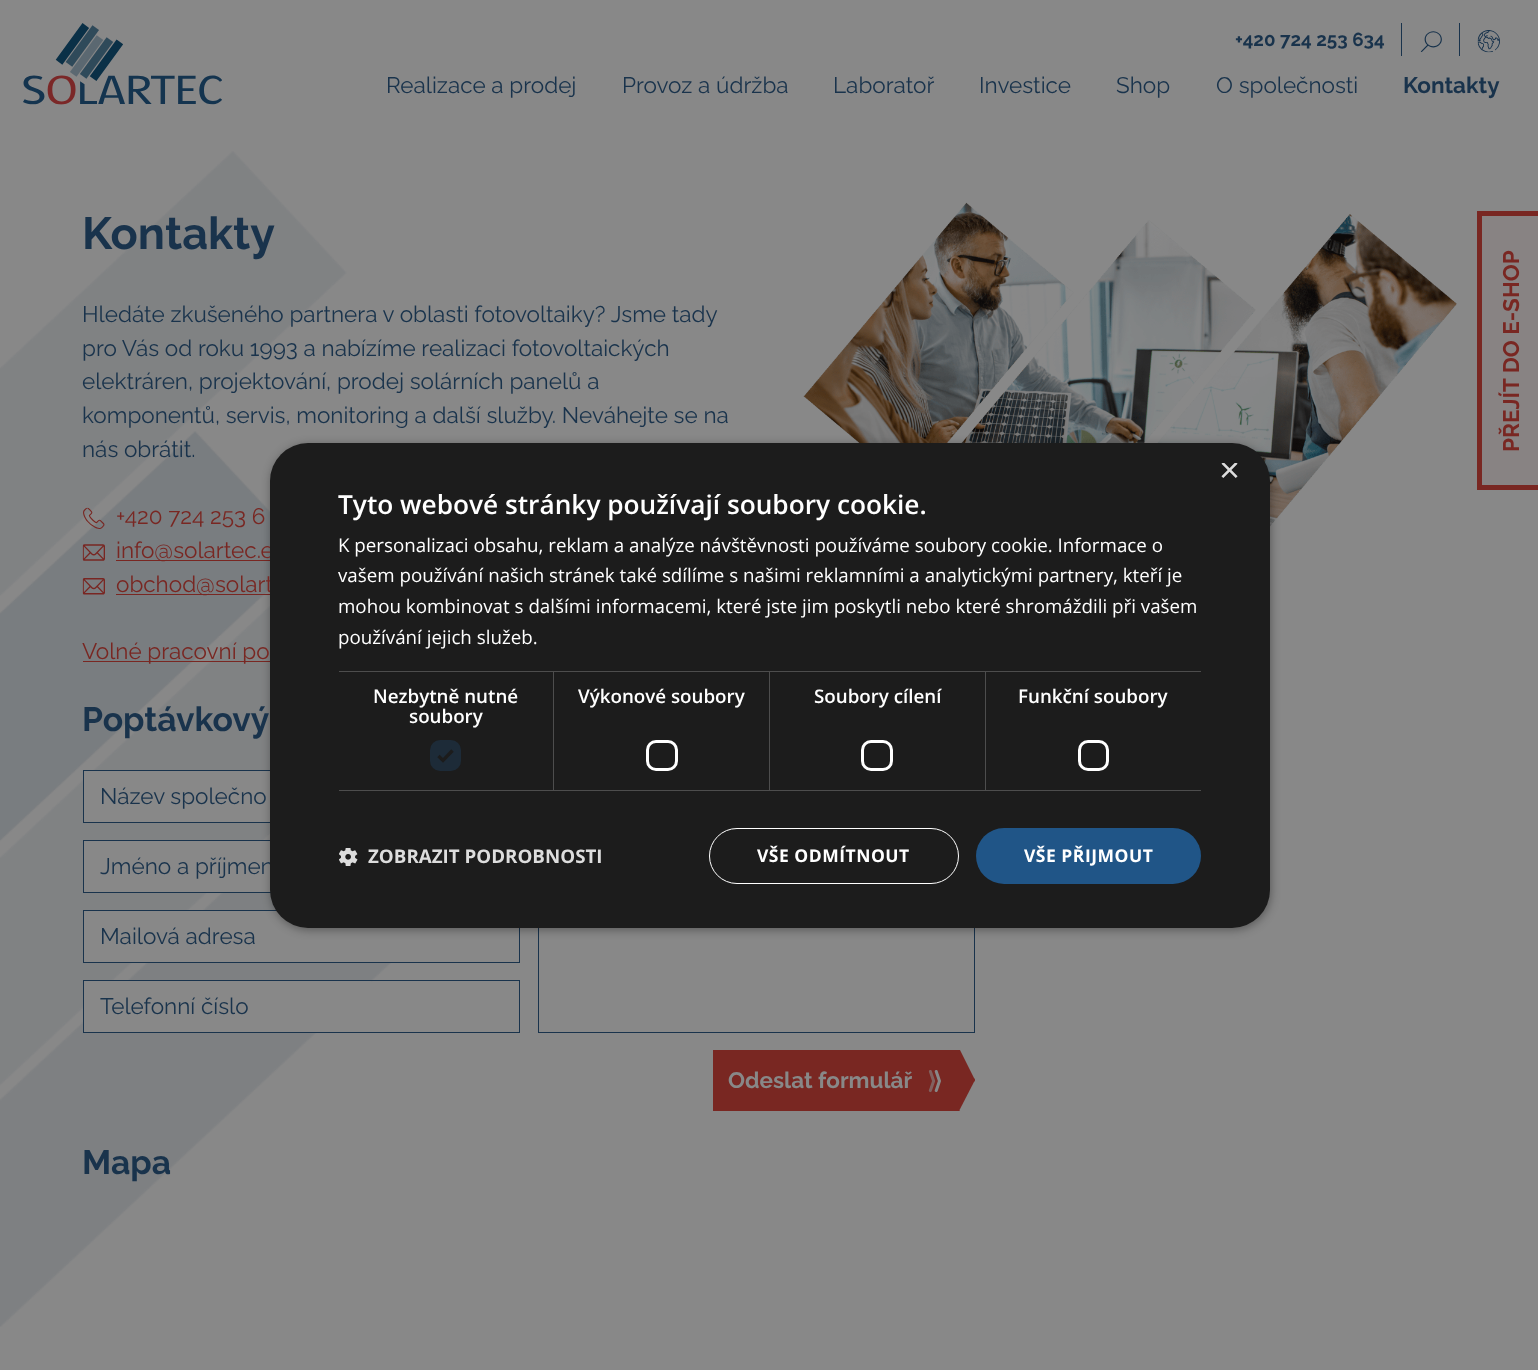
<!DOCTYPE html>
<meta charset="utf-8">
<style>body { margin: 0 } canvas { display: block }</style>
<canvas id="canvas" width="1538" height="1370"></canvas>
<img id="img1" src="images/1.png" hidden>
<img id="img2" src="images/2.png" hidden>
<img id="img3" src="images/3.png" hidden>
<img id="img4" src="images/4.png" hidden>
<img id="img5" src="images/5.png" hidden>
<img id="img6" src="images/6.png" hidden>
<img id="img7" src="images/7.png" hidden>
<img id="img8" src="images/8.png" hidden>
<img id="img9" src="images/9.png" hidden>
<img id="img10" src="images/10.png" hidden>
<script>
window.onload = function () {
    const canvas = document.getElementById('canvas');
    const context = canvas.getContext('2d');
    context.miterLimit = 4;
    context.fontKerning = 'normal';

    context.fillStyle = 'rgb(136, 136, 136)';
    context.fillRect(0, 0, 1538, 1370);
    context.drawImage(document.getElementById('img1'), 0, 151, 391, 1176);
    context.drawImage(document.getElementById('img2'), 23, 23, 199, 82);
    context.fillStyle = 'rgb(25, 51, 76)';
    context.fillRect(1401, 23, 1, 33);
    context.drawImage(document.getElementById('img3'), 1420, 31, 22, 21);
    context.fillRect(1459, 23, 1, 33);
    context.drawImage(document.getElementById('img4'), 1477, 30, 23, 23);
    context.drawImage(document.getElementById('img5'), 83, 507, 22, 22);
    context.drawImage(document.getElementById('img6'), 82, 544, 23, 17);
    context.fillStyle = 'rgb(121, 39, 34)';
    context.fillRect(116, 560, 154, 1);
    context.drawImage(document.getElementById('img7'), 82, 578, 23, 17);
    context.fillRect(116, 594, 154, 1);
    context.fillRect(83, 661, 187, 1);
    context.drawImage(document.getElementById('img8'), 803, 202, 654, 325);
    context.fillStyle = 'rgb(136, 136, 136)';
    context.fillRect(84, 771, 186, 51);
    context.strokeStyle = 'rgb(25, 51, 76)';
    context.strokeRect(83.5, 770.5, 436, 52);
    context.fillRect(84, 841, 187, 51);
    context.strokeRect(83.5, 840.5, 436, 52);
    context.fillRect(84, 911, 307, 51);
    context.strokeRect(83.5, 910.5, 436, 52);
    context.fillRect(84, 981, 287, 51);
    context.strokeRect(83.5, 980.5, 436, 52);
    context.strokeRect(538.5, 770.5, 436, 262);
    context.fillStyle = 'rgb(121, 39, 34)';
    context.beginPath();
    context.moveTo(713, 1050);
    context.lineTo(960, 1050);
    context.lineTo(975, 1080);
    context.lineTo(959, 1111);
    context.lineTo(713, 1111);
    context.closePath();
    context.fill();
    context.beginPath();
    context.moveTo(975, 1080);
    context.lineTo(974, 1082);
    context.lineTo(974, 1078);
    context.closePath();
    context.moveTo(713, 1050);
    context.lineTo(713, 1111);
    context.lineTo(959, 1111);
    context.lineTo(960, 1110);
    context.lineTo(714, 1110);
    context.lineTo(714, 1051);
    context.lineTo(960, 1051);
    context.lineTo(960, 1050);
    context.closePath();
    context.fill('evenodd');
    context.drawImage(document.getElementById('img9'), 928, 1070, 13, 23);
    context.fillRect(1477, 211, 5, 279);
    context.fillRect(1477, 211, 61, 5);
    context.fillRect(1477, 485, 61, 5);
    context.fillStyle = 'rgb(136, 131, 131)';
    context.fillRect(1482, 216, 56, 269);
    context.fillStyle = 'rgba(0, 0, 0, 0.35)';
    context.filter = 'blur(5px)';
    context.beginPath();
    context.roundRect(271, 445, 1000, 485, 38);
    context.fill();
    context.filter = 'none';
    context.font = 'bold 18.75px Raleway';
    context.fillStyle = 'rgb(25, 51, 76)';
    context.fillText('+420 724 253 634', 1235, 46);
    context.font = '22.5px Raleway';
    context.fillText('Realizace a prodej', 386, 93);
    context.fillText('Provoz a údržba', 622, 93);
    context.fillText('Laboratoř', 833, 93);
    context.fillText('Investice', 979, 93);
    context.fillText('Shop', 1116, 93);
    context.fillText('O společnosti', 1216, 93);
    context.font = 'bold 22.5px Raleway';
    context.fillText('Kontakty', 1403, 93);
    context.font = 'bold 45px Raleway';
    context.fillText('Kontakty', 82, 249);
    context.font = '22.5px Raleway';
    context.fillText('Hledáte zkušeného partnera v oblasti fotovoltaiky? Jsme tady', 82, 322);
    context.fillText('pro Vás od roku 1993 a nabízíme realizaci fotovoltaických', 82, 356);
    context.fillText('elektráren, projektování, prodej solárních panelů a', 82, 389);
    context.fillText('komponentů, servis, monitoring a další služby. Neváhejte se na', 82, 423);
    context.fillText('nás obrátit.', 82, 457);
    context.fillStyle = 'rgb(121, 39, 34)';
    context.fillText('+420 724 253 6', 116, 524);
    context.fillText('info@solartec.e', 116, 558);
    context.fillText('obchod@solart', 116, 592);
    context.fillText('Volné pracovní po', 82, 659);
    context.font = 'bold 33.75px Raleway';
    context.fillStyle = 'rgb(25, 51, 76)';
    context.fillText('Poptávkový', 82, 731);
    context.font = '22.5px Raleway';
    context.fillText('Název společno', 100, 804);
    context.fillText('Jméno a příjmen', 100, 874);
    context.fillText('Mailová adresa', 100, 944);
    context.fillText('Telefonní číslo', 100, 1014);
    context.font = 'bold 22.5px Raleway';
    context.fillStyle = 'rgb(136, 136, 136)';
    context.fillText('Odeslat formulář', 728, 1088);
    context.font = 'bold 33.75px Raleway';
    context.fillStyle = 'rgb(25, 51, 76)';
    context.fillText('Mapa', 82, 1174);
    context.font = 'bold 22.5px Raleway';
    context.fillStyle = 'rgb(121, 39, 34)';
    context.save();
    context.translate(1519, 452);
    context.rotate(-90 * Math.PI / 180);
    context.fillText('PŘEJÍT DO E-SHOP', 0, 0);
    context.restore();
    context.fillStyle = 'rgb(28, 28, 28)';
    context.beginPath();
    context.roundRect(270, 443, 1000, 485, 38);
    context.fill();
    context.save();
    context.beginPath();
    context.rect(1220, 463, 19, 18);
    context.clip();
    context.font = '36px Liberation Sans';
    context.fillStyle = 'rgb(221, 221, 221)';
    context.fillText('×', 1219, 482);
    context.restore();
    context.font = '600 26.25px Open Sans';
    context.fillStyle = 'rgb(255, 255, 255)';
    context.fillText('Tyto webové stránky používají soubory cookie.', 338, 514);
    context.font = '18.75px Open Sans';
    context.fillText('K personalizaci obsahu, reklam a analýze návštěvnosti používáme soubory cookie. Informace o', 338, 552);
    context.fillText('vašem používání našich stránek také sdílíme s našimi reklamními a analytickými partnery, kteří je', 338, 582);
    context.fillText('mohou kombinovat s dalšími informacemi, které jste jim poskytli nebo které shromáždili při vašem', 338, 613);
    context.fillText('používání jejich služeb.', 338, 644);
    context.fillStyle = 'rgb(77, 77, 77)';
    context.fillRect(339, 671, 862, 1);
    context.fillRect(553, 671, 1, 120);
    context.fillRect(339, 790, 215, 1);
    context.font = '600 18.75px Open Sans';
    context.fillStyle = 'rgb(255, 255, 255)';
    context.fillText('Nezbytně nutné', 373, 703);
    context.fillText('soubory', 409, 723);
    context.fillStyle = 'rgb(29, 43, 56)';
    context.beginPath();
    context.roundRect(430, 740, 31, 31, 10);
    context.fill();
    context.beginPath();
    context.moveTo(438.5, 756);
    context.lineTo(443, 760.5);
    context.lineTo(452.5, 750.5);
    context.strokeStyle = 'rgb(28, 28, 28)';
    context.lineWidth = 3.3;
    context.stroke();
    context.fillStyle = 'rgb(77, 77, 77)';
    context.fillRect(769, 671, 1, 120);
    context.fillRect(554, 790, 216, 1);
    context.fillStyle = 'rgb(255, 255, 255)';
    context.fillText('Výkonové soubory', 578, 703);
    context.beginPath();
    context.roundRect(647.5, 741.5, 29, 28, 8.5);
    context.strokeStyle = 'rgb(255, 255, 255)';
    context.lineWidth = 3;
    context.stroke();
    context.fillStyle = 'rgb(77, 77, 77)';
    context.fillRect(985, 671, 1, 120);
    context.fillRect(770, 790, 431, 1);
    context.fillStyle = 'rgb(255, 255, 255)';
    context.fillText('Soubory cílení', 814, 703);
    context.beginPath();
    context.roundRect(862.5, 741.5, 29, 28, 8.5);
    context.stroke();
    context.fillText('Funkční soubory', 1018, 703);
    context.beginPath();
    context.roundRect(1079.5, 741.5, 28, 28, 8.5);
    context.stroke();
    context.drawImage(document.getElementById('img10'), 339, 848, 19, 18);
    context.font = 'bold 18.75px Open Sans';
    context.fillStyle = 'rgb(221, 221, 221)';
    context.fillText('ZOBRAZIT PODROBNOSTI', 368, 863);
    context.beginPath();
    context.roundRect(709.5, 828.5, 249, 55, 27.5);
    context.lineWidth = 1;
    context.stroke();
    context.letterSpacing = '0.5px';
    context.font = 'bold 17.5px Open Sans';
    context.fillStyle = 'rgb(255, 255, 255)';
    context.fillText('VŠE ODMÍTNOUT', 757, 862);
    context.fillStyle = 'rgb(32, 85, 135)';
    context.beginPath();
    context.roundRect(976, 828, 225, 56, 28);
    context.fill();
    context.fillStyle = 'rgb(255, 255, 255)';
    context.fillText('VŠE PŘIJMOUT', 1024, 862);
};
</script>
